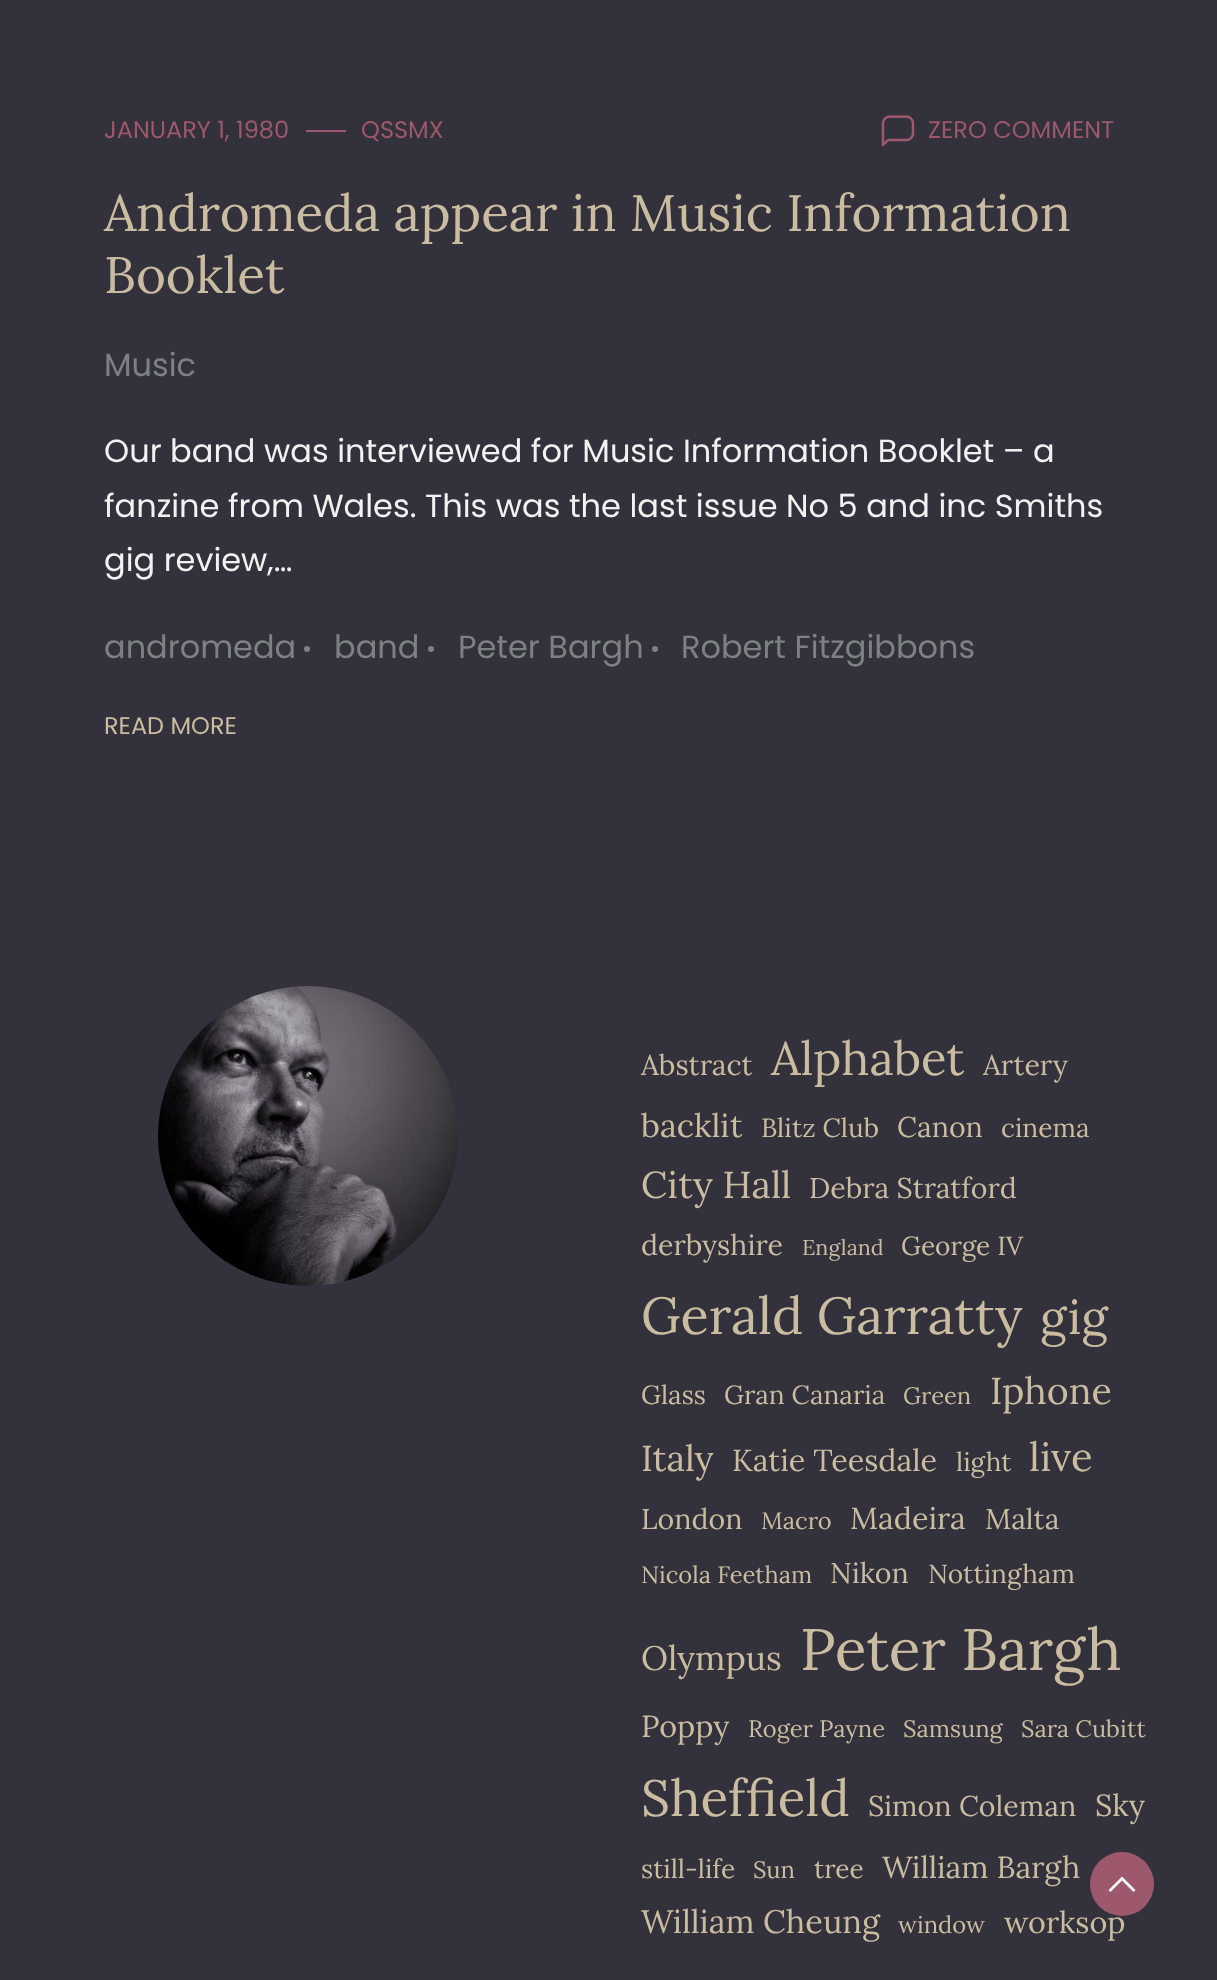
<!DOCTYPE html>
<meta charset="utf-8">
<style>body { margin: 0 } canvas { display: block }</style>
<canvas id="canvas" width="1217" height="1980"></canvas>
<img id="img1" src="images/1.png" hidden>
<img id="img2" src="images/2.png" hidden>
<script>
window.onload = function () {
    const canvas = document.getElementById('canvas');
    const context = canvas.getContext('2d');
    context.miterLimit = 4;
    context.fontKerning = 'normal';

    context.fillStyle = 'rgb(51, 49, 59)';
    context.fillRect(0, 0, 1217, 1980);
    context.fillStyle = 'rgb(158, 88, 107)';
    context.fillRect(306, 130, 40, 2);
    context.drawImage(document.getElementById('img1'), 881, 115, 34, 32);
    context.fillStyle = 'rgb(124, 129, 130)';
    context.beginPath();
    context.arc(307, 649, 3, 0, 2 * Math.PI);
    context.fill();
    context.beginPath();
    context.arc(431, 649, 3, 0, 2 * Math.PI);
    context.fill();
    context.beginPath();
    context.arc(655, 649, 3, 0, 2 * Math.PI);
    context.fill();
    context.drawImage(document.getElementById('img2'), 158, 986, 300, 300);
    context.font = '24px Poppins';
    context.fillStyle = 'rgb(158, 88, 107)';
    context.fillText('JANUARY 1, 1980', 104, 138);
    context.fillText('QSSMX', 361, 138);
    context.fillText('ZERO COMMENT', 928, 138);
    context.font = '51.25px Lora';
    context.fillStyle = 'rgb(202, 188, 160)';
    context.fillText('Andromeda appear in Music Information', 104, 231);
    context.fillText('Booklet', 104, 293);
    context.font = '32px Poppins';
    context.fillStyle = 'rgb(124, 129, 130)';
    context.fillText('Music', 104, 376);
    context.fillStyle = 'rgb(242, 242, 242)';
    context.fillText('Our band was interviewed for Music Information Booklet – a', 104, 462);
    context.fillText('fanzine from Wales. This was the last issue No 5 and inc Smiths', 104, 517);
    context.fillText('gig review,…', 104, 571);
    context.fillStyle = 'rgb(124, 129, 130)';
    context.fillText('andromeda', 104, 658);
    context.fillText('band', 334, 658);
    context.fillText('Peter Bargh', 458, 658);
    context.fillText('Robert Fitzgibbons', 681, 658);
    context.font = '24px Poppins';
    context.fillStyle = 'rgb(202, 188, 160)';
    context.fillText('READ MORE', 104, 734);
    context.font = '28.5px Lora';
    context.fillText('Abstract', 641, 1075);
    context.font = '47px Lora';
    context.fillText('Alphabet', 771, 1075);
    context.font = '28.5px Lora';
    context.fillText('Artery', 983, 1075);
    context.font = '32.5px Lora';
    context.fillText('backlit', 641, 1137);
    context.font = '26.25px Lora';
    context.fillText('Blitz Club', 761, 1137);
    context.font = '28.5px Lora';
    context.fillText('Canon', 897, 1137);
    context.font = '26.25px Lora';
    context.fillText('cinema', 1001, 1137);
    context.font = '37.5px Lora';
    context.fillText('City Hall', 641, 1198);
    context.font = '28.5px Lora';
    context.fillText('Debra Stratford', 809, 1198);
    context.fillText('derbyshire', 641, 1255);
    context.font = '21.5px Lora';
    context.fillText('England', 802, 1255);
    context.font = '26.25px Lora';
    context.fillText('George IV', 901, 1255);
    context.font = '52px Lora';
    context.fillText('Gerald Garratty', 641, 1334);
    context.font = '48px Lora';
    context.fillText('gig', 1040, 1334);
    context.font = '26.25px Lora';
    context.fillText('Glass', 641, 1404);
    context.fillText('Gran Canaria', 724, 1404);
    context.font = '23.75px Lora';
    context.fillText('Green', 903, 1404);
    context.font = '37.5px Lora';
    context.fillText('Iphone', 990, 1404);
    context.font = '36px Lora';
    context.fillText('Italy', 641, 1471);
    context.font = '30.5px Lora';
    context.fillText('Katie Teesdale', 732, 1471);
    context.font = '26.25px Lora';
    context.fillText('light', 956, 1471);
    context.font = '40px Lora';
    context.fillText('live', 1029, 1471);
    context.font = '28.5px Lora';
    context.fillText('London', 641, 1529);
    context.font = '23.75px Lora';
    context.fillText('Macro', 761, 1529);
    context.font = '30.5px Lora';
    context.fillText('Madeira', 850, 1529);
    context.font = '28.5px Lora';
    context.fillText('Malta', 985, 1529);
    context.font = '23.75px Lora';
    context.fillText('Nicola Feetham', 641, 1583);
    context.font = '28.5px Lora';
    context.fillText('Nikon', 830, 1583);
    context.font = '26.25px Lora';
    context.fillText('Nottingham', 928, 1583);
    context.font = '34px Lora';
    context.fillText('Olympus', 641, 1670);
    context.font = '58.5px Lora';
    context.fillText('Peter Bargh', 800, 1670);
    context.font = '30.5px Lora';
    context.fillText('Poppy', 641, 1737);
    context.font = '23.75px Lora';
    context.fillText('Roger Payne', 748, 1737);
    context.fillText('Samsung', 903, 1737);
    context.fillText('Sara Cubitt', 1021, 1737);
    context.font = '51px Lora';
    context.fillText('Sheffield', 641, 1816);
    context.font = '28.5px Lora';
    context.fillText('Simon Coleman', 868, 1816);
    context.font = '30.5px Lora';
    context.fillText('Sky', 1095, 1816);
    context.font = '26.25px Lora';
    context.fillText('still-life', 641, 1878);
    context.font = '23.75px Lora';
    context.fillText('Sun', 753, 1878);
    context.font = '26.25px Lora';
    context.fillText('tree', 814, 1878);
    context.font = '30.5px Lora';
    context.fillText('William Bargh', 882, 1878);
    context.font = '32.5px Lora';
    context.fillText('William Cheung', 641, 1933);
    context.font = '23.75px Lora';
    context.fillText('window', 898, 1933);
    context.font = '30.5px Lora';
    context.fillText('worksop', 1004, 1933);
    context.fillStyle = 'rgb(158, 88, 107)';
    context.beginPath();
    context.arc(1122, 1884, 32, 0, 2 * Math.PI);
    context.fill();
    context.fillStyle = 'rgb(242, 242, 242)';
    context.beginPath();
    context.moveTo(1135.5, 1890);
    context.lineTo(1133.5, 1892);
    context.lineTo(1122, 1880.5);
    context.lineTo(1110.5, 1892);
    context.lineTo(1108.5, 1890);
    context.lineTo(1122, 1876.5);
    context.lineTo(1135.5, 1890);
    context.fill();
};
</script>
